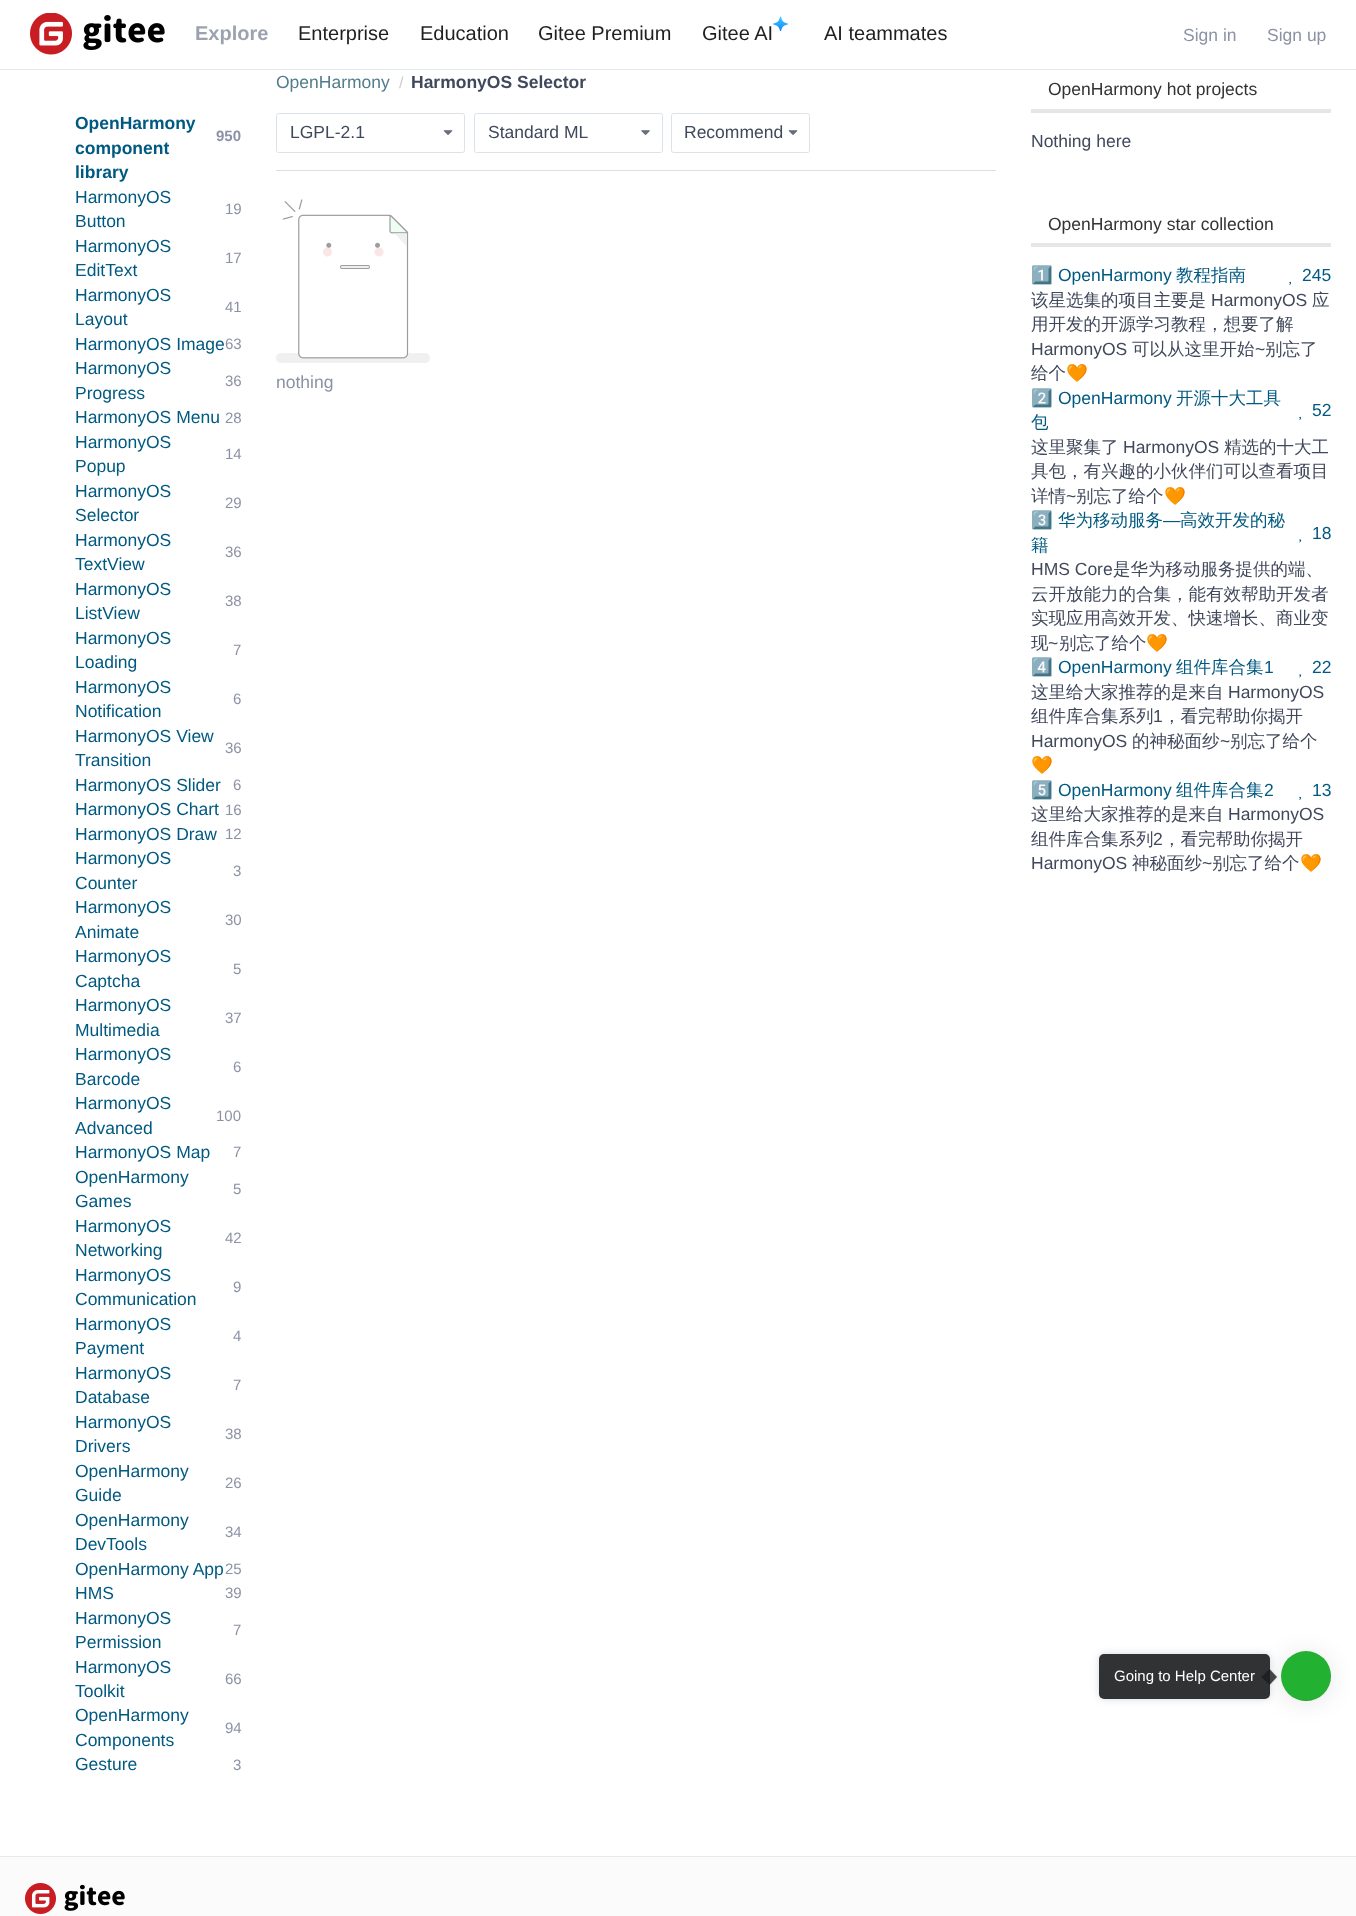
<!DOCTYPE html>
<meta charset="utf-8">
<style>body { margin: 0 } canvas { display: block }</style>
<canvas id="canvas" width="1356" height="1916"></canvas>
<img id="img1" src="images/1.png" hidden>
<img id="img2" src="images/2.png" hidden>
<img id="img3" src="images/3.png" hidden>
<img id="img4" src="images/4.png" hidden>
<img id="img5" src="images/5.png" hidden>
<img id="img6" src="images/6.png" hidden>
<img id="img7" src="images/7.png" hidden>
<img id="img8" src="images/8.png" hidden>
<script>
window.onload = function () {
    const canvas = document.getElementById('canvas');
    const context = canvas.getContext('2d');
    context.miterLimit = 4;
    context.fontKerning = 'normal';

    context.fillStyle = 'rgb(255, 255, 255)';
    context.fillRect(0, 0, 1356, 1916);
    context.fillStyle = 'rgb(227, 233, 237)';
    context.fillRect(0, 69, 1356, 1);
    context.drawImage(document.getElementById('img1'), 30, 13, 135, 42);
    context.drawImage(document.getElementById('img2'), 773, 16, 15, 15);
    context.beginPath();
    context.roundRect(276.5, 113.5, 188, 39, 2);
    context.strokeStyle = 'rgb(220, 227, 232)';
    context.stroke();
    context.drawImage(document.getElementById('img3'), 443, 130, 10, 5);
    context.beginPath();
    context.roundRect(474.5, 113.5, 188, 39, 2);
    context.stroke();
    context.drawImage(document.getElementById('img4'), 641, 130, 9, 5);
    context.beginPath();
    context.roundRect(671.5, 113.5, 138, 39, 2);
    context.stroke();
    context.drawImage(document.getElementById('img3'), 788, 130, 10, 5);
    context.fillStyle = 'rgb(222, 222, 222)';
    context.fillRect(276, 170, 720, 1);
    context.drawImage(document.getElementById('img5'), 276, 199, 154, 164);
    context.fillStyle = 'rgb(230, 230, 230)';
    context.fillRect(1031, 109, 300, 4);
    context.fillRect(1031, 243, 300, 4);
    context.drawImage(document.getElementById('img6'), 1289, 281, 3, 4);
    context.drawImage(document.getElementById('img6'), 1299, 416, 3, 4);
    context.drawImage(document.getElementById('img7'), 1299, 539, 3, 4);
    context.drawImage(document.getElementById('img7'), 1299, 674, 3, 4);
    context.drawImage(document.getElementById('img6'), 1299, 796, 3, 4);
    context.fillStyle = 'rgba(0, 0, 0, 0.1)';
    context.filter = 'blur(12.5px)';
    context.beginPath();
    context.roundRect(1281, 1653, 50, 50, 25);
    context.fill();
    context.filter = 'none';
    context.fillStyle = 'rgb(34, 177, 48)';
    context.beginPath();
    context.arc(1306, 1676, 25, 0, 2 * Math.PI);
    context.fill();
    context.fillStyle = 'rgba(0, 0, 0, 0.1)';
    context.beginPath();
    context.moveTo(1282, 1670);
    context.bezierCurveTo(1276, 1697, 1311, 1713, 1327, 1690);
    context.bezierCurveTo(1331, 1684, 1332, 1677, 1330, 1670);
    context.bezierCurveTo(1333, 1684, 1325, 1700, 1306, 1700);
    context.bezierCurveTo(1287, 1700, 1279, 1684, 1282, 1670);
    context.closePath();
    context.fill();
    context.save();
    context.beginPath();
    context.moveTo(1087, 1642);
    context.lineTo(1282, 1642);
    context.lineTo(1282, 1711);
    context.lineTo(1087, 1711);
    context.closePath();
    context.moveTo(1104, 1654);
    context.lineTo(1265, 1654);
    context.bezierCurveTo(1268, 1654, 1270, 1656, 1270, 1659);
    context.lineTo(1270, 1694);
    context.bezierCurveTo(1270, 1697, 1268, 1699, 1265, 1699);
    context.lineTo(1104, 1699);
    context.bezierCurveTo(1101, 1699, 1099, 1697, 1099, 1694);
    context.lineTo(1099, 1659);
    context.bezierCurveTo(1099, 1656, 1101, 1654, 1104, 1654);
    context.closePath();
    context.clip('evenodd');
    context.fillStyle = 'rgba(140, 146, 163, 0.45)';
    context.filter = 'blur(4px)';
    context.beginPath();
    context.roundRect(1100, 1655, 169, 43, 4);
    context.fill();
    context.filter = 'none';
    context.restore();
    context.fillStyle = 'rgba(27, 28, 29, 0.9)';
    context.beginPath();
    context.roundRect(1099, 1654, 171, 45, 5);
    context.fill();
    context.fillStyle = 'rgba(179, 179, 179, 0.16)';
    context.beginPath();
    context.moveTo(1271, 1669);
    context.lineTo(1270, 1670);
    context.lineTo(1277, 1677);
    context.lineTo(1270, 1684);
    context.lineTo(1271, 1685);
    context.lineTo(1279, 1677);
    context.closePath();
    context.fill();
    context.fillStyle = 'rgba(27, 28, 29, 0.81)';
    context.beginPath();
    context.moveTo(1269.5, 1669);
    context.lineTo(1277, 1677);
    context.lineTo(1269.5, 1685);
    context.lineTo(1261.5, 1677);
    context.closePath();
    context.fill();
    context.fillStyle = 'rgb(251, 251, 251)';
    context.fillRect(0, 1857, 1356, 59);
    context.fillStyle = 'rgb(227, 233, 237)';
    context.fillRect(0, 1856, 1356, 1);
    context.drawImage(document.getElementById('img8'), 25, 1883, 100, 31);
    context.font = 'bold 20px Liberation Sans';
    context.fillStyle = 'rgb(156, 163, 175)';
    context.fillText('Explore', 195, 40);
    context.font = '20px Liberation Sans';
    context.fillStyle = 'rgb(31, 31, 31)';
    context.fillText('Enterprise', 298, 40);
    context.fillText('Education', 420, 40);
    context.fillText('Gitee Premium', 538, 40);
    context.fillText('Gitee AI', 702, 40);
    context.fillText('AI teammates', 824, 40);
    context.font = '17.5px Liberation Sans';
    context.fillStyle = 'rgb(140, 146, 164)';
    context.fillText('Sign in', 1183, 41);
    context.fillText('Sign up', 1267, 41);
    context.font = 'bold 17.5px Liberation Sans';
    context.fillStyle = 'rgb(0, 89, 128)';
    context.fillText('OpenHarmony', 75, 129);
    context.fillText('component', 75, 154);
    context.fillText('library', 75, 178);
    context.font = 'bold 15px Liberation Sans';
    context.fillStyle = 'rgb(140, 146, 164)';
    context.fillText('950', 216, 141);
    context.font = '17.5px Liberation Sans';
    context.fillStyle = 'rgb(0, 89, 128)';
    context.fillText('HarmonyOS', 75, 203);
    context.fillText('Button', 75, 227);
    context.font = '15px Liberation Sans';
    context.fillStyle = 'rgb(140, 146, 164)';
    context.fillText('19', 225, 214);
    context.font = '17.5px Liberation Sans';
    context.fillStyle = 'rgb(0, 89, 128)';
    context.fillText('HarmonyOS', 75, 252);
    context.fillText('EditText', 75, 276);
    context.font = '15px Liberation Sans';
    context.fillStyle = 'rgb(140, 146, 164)';
    context.fillText('17', 225, 263);
    context.font = '17.5px Liberation Sans';
    context.fillStyle = 'rgb(0, 89, 128)';
    context.fillText('HarmonyOS', 75, 301);
    context.fillText('Layout', 75, 325);
    context.font = '15px Liberation Sans';
    context.fillStyle = 'rgb(140, 146, 164)';
    context.fillText('41', 225, 312);
    context.font = '17.5px Liberation Sans';
    context.fillStyle = 'rgb(0, 89, 128)';
    context.fillText('HarmonyOS Image', 75, 350);
    context.font = '15px Liberation Sans';
    context.fillStyle = 'rgb(140, 146, 164)';
    context.fillText('63', 225, 349);
    context.font = '17.5px Liberation Sans';
    context.fillStyle = 'rgb(0, 89, 128)';
    context.fillText('HarmonyOS', 75, 374);
    context.fillText('Progress', 75, 399);
    context.font = '15px Liberation Sans';
    context.fillStyle = 'rgb(140, 146, 164)';
    context.fillText('36', 225, 386);
    context.font = '17.5px Liberation Sans';
    context.fillStyle = 'rgb(0, 89, 128)';
    context.fillText('HarmonyOS Menu', 75, 423);
    context.font = '15px Liberation Sans';
    context.fillStyle = 'rgb(140, 146, 164)';
    context.fillText('28', 225, 423);
    context.font = '17.5px Liberation Sans';
    context.fillStyle = 'rgb(0, 89, 128)';
    context.fillText('HarmonyOS', 75, 448);
    context.fillText('Popup', 75, 472);
    context.font = '15px Liberation Sans';
    context.fillStyle = 'rgb(140, 146, 164)';
    context.fillText('14', 225, 459);
    context.font = '17.5px Liberation Sans';
    context.fillStyle = 'rgb(0, 89, 128)';
    context.fillText('HarmonyOS', 75, 497);
    context.fillText('Selector', 75, 521);
    context.font = '15px Liberation Sans';
    context.fillStyle = 'rgb(140, 146, 164)';
    context.fillText('29', 225, 508);
    context.font = '17.5px Liberation Sans';
    context.fillStyle = 'rgb(0, 89, 128)';
    context.fillText('HarmonyOS', 75, 546);
    context.fillText('TextView', 75, 570);
    context.font = '15px Liberation Sans';
    context.fillStyle = 'rgb(140, 146, 164)';
    context.fillText('36', 225, 557);
    context.font = '17.5px Liberation Sans';
    context.fillStyle = 'rgb(0, 89, 128)';
    context.fillText('HarmonyOS', 75, 595);
    context.fillText('ListView', 75, 619);
    context.font = '15px Liberation Sans';
    context.fillStyle = 'rgb(140, 146, 164)';
    context.fillText('38', 225, 606);
    context.font = '17.5px Liberation Sans';
    context.fillStyle = 'rgb(0, 89, 128)';
    context.fillText('HarmonyOS', 75, 644);
    context.fillText('Loading', 75, 668);
    context.font = '15px Liberation Sans';
    context.fillStyle = 'rgb(140, 146, 164)';
    context.fillText('7', 233, 655);
    context.font = '17.5px Liberation Sans';
    context.fillStyle = 'rgb(0, 89, 128)';
    context.fillText('HarmonyOS', 75, 693);
    context.fillText('Notification', 75, 717);
    context.font = '15px Liberation Sans';
    context.fillStyle = 'rgb(140, 146, 164)';
    context.fillText('6', 233, 704);
    context.font = '17.5px Liberation Sans';
    context.fillStyle = 'rgb(0, 89, 128)';
    context.fillText('HarmonyOS View', 75, 742);
    context.fillText('Transition', 75, 766);
    context.font = '15px Liberation Sans';
    context.fillStyle = 'rgb(140, 146, 164)';
    context.fillText('36', 225, 753);
    context.font = '17.5px Liberation Sans';
    context.fillStyle = 'rgb(0, 89, 128)';
    context.fillText('HarmonyOS Slider', 75, 791);
    context.font = '15px Liberation Sans';
    context.fillStyle = 'rgb(140, 146, 164)';
    context.fillText('6', 233, 790);
    context.font = '17.5px Liberation Sans';
    context.fillStyle = 'rgb(0, 89, 128)';
    context.fillText('HarmonyOS Chart', 75, 815);
    context.font = '15px Liberation Sans';
    context.fillStyle = 'rgb(140, 146, 164)';
    context.fillText('16', 225, 815);
    context.font = '17.5px Liberation Sans';
    context.fillStyle = 'rgb(0, 89, 128)';
    context.fillText('HarmonyOS Draw', 75, 840);
    context.font = '15px Liberation Sans';
    context.fillStyle = 'rgb(140, 146, 164)';
    context.fillText('12', 225, 839);
    context.font = '17.5px Liberation Sans';
    context.fillStyle = 'rgb(0, 89, 128)';
    context.fillText('HarmonyOS', 75, 864);
    context.fillText('Counter', 75, 889);
    context.font = '15px Liberation Sans';
    context.fillStyle = 'rgb(140, 146, 164)';
    context.fillText('3', 233, 876);
    context.font = '17.5px Liberation Sans';
    context.fillStyle = 'rgb(0, 89, 128)';
    context.fillText('HarmonyOS', 75, 913);
    context.fillText('Animate', 75, 938);
    context.font = '15px Liberation Sans';
    context.fillStyle = 'rgb(140, 146, 164)';
    context.fillText('30', 225, 925);
    context.font = '17.5px Liberation Sans';
    context.fillStyle = 'rgb(0, 89, 128)';
    context.fillText('HarmonyOS', 75, 962);
    context.fillText('Captcha', 75, 987);
    context.font = '15px Liberation Sans';
    context.fillStyle = 'rgb(140, 146, 164)';
    context.fillText('5', 233, 974);
    context.font = '17.5px Liberation Sans';
    context.fillStyle = 'rgb(0, 89, 128)';
    context.fillText('HarmonyOS', 75, 1011);
    context.fillText('Multimedia', 75, 1036);
    context.font = '15px Liberation Sans';
    context.fillStyle = 'rgb(140, 146, 164)';
    context.fillText('37', 225, 1023);
    context.font = '17.5px Liberation Sans';
    context.fillStyle = 'rgb(0, 89, 128)';
    context.fillText('HarmonyOS', 75, 1060);
    context.fillText('Barcode', 75, 1085);
    context.font = '15px Liberation Sans';
    context.fillStyle = 'rgb(140, 146, 164)';
    context.fillText('6', 233, 1072);
    context.font = '17.5px Liberation Sans';
    context.fillStyle = 'rgb(0, 89, 128)';
    context.fillText('HarmonyOS', 75, 1109);
    context.fillText('Advanced', 75, 1134);
    context.font = '15px Liberation Sans';
    context.fillStyle = 'rgb(140, 146, 164)';
    context.fillText('100', 216, 1121);
    context.font = '17.5px Liberation Sans';
    context.fillStyle = 'rgb(0, 89, 128)';
    context.fillText('HarmonyOS Map', 75, 1158);
    context.font = '15px Liberation Sans';
    context.fillStyle = 'rgb(140, 146, 164)';
    context.fillText('7', 233, 1157);
    context.font = '17.5px Liberation Sans';
    context.fillStyle = 'rgb(0, 89, 128)';
    context.fillText('OpenHarmony', 75, 1183);
    context.fillText('Games', 75, 1207);
    context.font = '15px Liberation Sans';
    context.fillStyle = 'rgb(140, 146, 164)';
    context.fillText('5', 233, 1194);
    context.font = '17.5px Liberation Sans';
    context.fillStyle = 'rgb(0, 89, 128)';
    context.fillText('HarmonyOS', 75, 1232);
    context.fillText('Networking', 75, 1256);
    context.font = '15px Liberation Sans';
    context.fillStyle = 'rgb(140, 146, 164)';
    context.fillText('42', 225, 1243);
    context.font = '17.5px Liberation Sans';
    context.fillStyle = 'rgb(0, 89, 128)';
    context.fillText('HarmonyOS', 75, 1281);
    context.fillText('Communication', 75, 1305);
    context.font = '15px Liberation Sans';
    context.fillStyle = 'rgb(140, 146, 164)';
    context.fillText('9', 233, 1292);
    context.font = '17.5px Liberation Sans';
    context.fillStyle = 'rgb(0, 89, 128)';
    context.fillText('HarmonyOS', 75, 1330);
    context.fillText('Payment', 75, 1354);
    context.font = '15px Liberation Sans';
    context.fillStyle = 'rgb(140, 146, 164)';
    context.fillText('4', 233, 1341);
    context.font = '17.5px Liberation Sans';
    context.fillStyle = 'rgb(0, 89, 128)';
    context.fillText('HarmonyOS', 75, 1379);
    context.fillText('Database', 75, 1403);
    context.font = '15px Liberation Sans';
    context.fillStyle = 'rgb(140, 146, 164)';
    context.fillText('7', 233, 1390);
    context.font = '17.5px Liberation Sans';
    context.fillStyle = 'rgb(0, 89, 128)';
    context.fillText('HarmonyOS', 75, 1428);
    context.fillText('Drivers', 75, 1452);
    context.font = '15px Liberation Sans';
    context.fillStyle = 'rgb(140, 146, 164)';
    context.fillText('38', 225, 1439);
    context.font = '17.5px Liberation Sans';
    context.fillStyle = 'rgb(0, 89, 128)';
    context.fillText('OpenHarmony', 75, 1477);
    context.fillText('Guide', 75, 1501);
    context.font = '15px Liberation Sans';
    context.fillStyle = 'rgb(140, 146, 164)';
    context.fillText('26', 225, 1488);
    context.font = '17.5px Liberation Sans';
    context.fillStyle = 'rgb(0, 89, 128)';
    context.fillText('OpenHarmony', 75, 1526);
    context.fillText('DevTools', 75, 1550);
    context.font = '15px Liberation Sans';
    context.fillStyle = 'rgb(140, 146, 164)';
    context.fillText('34', 225, 1537);
    context.font = '17.5px Liberation Sans';
    context.fillStyle = 'rgb(0, 89, 128)';
    context.fillText('OpenHarmony App', 75, 1575);
    context.font = '15px Liberation Sans';
    context.fillStyle = 'rgb(140, 146, 164)';
    context.fillText('25', 225, 1574);
    context.font = '17.5px Liberation Sans';
    context.fillStyle = 'rgb(0, 89, 128)';
    context.fillText('HMS', 75, 1599);
    context.font = '15px Liberation Sans';
    context.fillStyle = 'rgb(140, 146, 164)';
    context.fillText('39', 225, 1598);
    context.font = '17.5px Liberation Sans';
    context.fillStyle = 'rgb(0, 89, 128)';
    context.fillText('HarmonyOS', 75, 1624);
    context.fillText('Permission', 75, 1648);
    context.font = '15px Liberation Sans';
    context.fillStyle = 'rgb(140, 146, 164)';
    context.fillText('7', 233, 1635);
    context.font = '17.5px Liberation Sans';
    context.fillStyle = 'rgb(0, 89, 128)';
    context.fillText('HarmonyOS', 75, 1673);
    context.fillText('Toolkit', 75, 1697);
    context.font = '15px Liberation Sans';
    context.fillStyle = 'rgb(140, 146, 164)';
    context.fillText('66', 225, 1684);
    context.font = '17.5px Liberation Sans';
    context.fillStyle = 'rgb(0, 89, 128)';
    context.fillText('OpenHarmony', 75, 1721);
    context.fillText('Components', 75, 1746);
    context.font = '15px Liberation Sans';
    context.fillStyle = 'rgb(140, 146, 164)';
    context.fillText('94', 225, 1733);
    context.font = '17.5px Liberation Sans';
    context.fillStyle = 'rgb(0, 89, 128)';
    context.fillText('Gesture', 75, 1770);
    context.font = '15px Liberation Sans';
    context.fillStyle = 'rgb(140, 146, 164)';
    context.fillText('3', 233, 1770);
    context.font = '17.5px Liberation Sans';
    context.fillStyle = 'rgb(83, 124, 141)';
    context.fillText('OpenHarmony', 276, 88);
    context.font = '16px Liberation Sans';
    context.fillStyle = 'rgb(204, 204, 204)';
    context.fillText('/', 399, 88);
    context.font = 'bold 17.5px Liberation Sans';
    context.fillStyle = 'rgb(64, 72, 91)';
    context.fillText('HarmonyOS Selector', 411, 88);
    context.font = '17.5px Liberation Sans';
    context.fillText('LGPL-2.1', 290, 138);
    context.fillText('Standard ML', 488, 138);
    context.fillText('Recommend', 684, 138);
    context.fillStyle = 'rgb(140, 146, 164)';
    context.fillText('nothing', 276, 388);
    context.fillStyle = 'rgb(51, 51, 51)';
    context.fillText('OpenHarmony hot projects', 1048, 95);
    context.fillStyle = 'rgb(64, 72, 91)';
    context.fillText('Nothing here', 1031, 147);
    context.fillStyle = 'rgb(51, 51, 51)';
    context.fillText('OpenHarmony star collection', 1048, 230);
    context.font = '17.5px Noto Color Emoji';
    context.fillStyle = 'rgb(0, 89, 128)';
    context.fillText('1️⃣', 1031, 281);
    context.font = '17.5px Liberation Sans';
    context.fillText('OpenHarmony', 1058, 281);
    context.font = '500 17.5px WenQuanYi Zen Hei';
    context.fillText('教程指南', 1176, 281);
    context.font = '17.5px Liberation Sans';
    context.fillText('245', 1302, 281);
    context.font = '500 17.5px WenQuanYi Zen Hei';
    context.fillStyle = 'rgb(64, 72, 91)';
    context.fillText('该星选集的项目主要是', 1031, 306);
    context.font = '17.5px Liberation Sans';
    context.fillText('HarmonyOS', 1211, 306);
    context.font = '500 17.5px WenQuanYi Zen Hei';
    context.fillText('应', 1312, 306);
    context.fillText('用开发的开源学习教程，想要了解', 1031, 330);
    context.font = '17.5px Liberation Sans';
    context.fillText('HarmonyOS', 1031, 355);
    context.font = '500 17.5px WenQuanYi Zen Hei';
    context.fillText('可以从这里开始', 1132, 355);
    context.font = '17.5px Liberation Sans';
    context.fillText('~', 1255, 355);
    context.font = '500 17.5px WenQuanYi Zen Hei';
    context.fillText('别忘了', 1265, 355);
    context.fillText('给个', 1031, 379);
    context.font = '17.5px Noto Color Emoji';
    context.fillText('🧡', 1066, 379);
    context.fillStyle = 'rgb(0, 89, 128)';
    context.fillText('2️⃣', 1031, 404);
    context.font = '17.5px Liberation Sans';
    context.fillText('OpenHarmony', 1058, 404);
    context.font = '500 17.5px WenQuanYi Zen Hei';
    context.fillText('开源十大工具', 1176, 404);
    context.fillText('包', 1031, 428);
    context.font = '17.5px Liberation Sans';
    context.fillText('52', 1312, 416);
    context.font = '500 17.5px WenQuanYi Zen Hei';
    context.fillStyle = 'rgb(64, 72, 91)';
    context.fillText('这里聚集了', 1031, 453);
    context.font = '17.5px Liberation Sans';
    context.fillText('HarmonyOS', 1123, 453);
    context.font = '500 17.5px WenQuanYi Zen Hei';
    context.fillText('精选的十大工', 1224, 453);
    context.fillText('具包，有兴趣的小伙伴们可以查看项目', 1031, 477);
    context.fillText('详情', 1031, 502);
    context.font = '17.5px Liberation Sans';
    context.fillText('~', 1066, 502);
    context.font = '500 17.5px WenQuanYi Zen Hei';
    context.fillText('别忘了给个', 1076, 502);
    context.font = '17.5px Noto Color Emoji';
    context.fillText('🧡', 1164, 502);
    context.fillStyle = 'rgb(0, 89, 128)';
    context.fillText('3️⃣', 1031, 526);
    context.font = '500 17.5px WenQuanYi Zen Hei';
    context.fillText('华为移动服务', 1058, 526);
    context.font = '17.5px Liberation Sans';
    context.fillText('—', 1163, 526);
    context.font = '500 17.5px WenQuanYi Zen Hei';
    context.fillText('高效开发的秘', 1180, 526);
    context.fillText('籍', 1031, 551);
    context.font = '17.5px Liberation Sans';
    context.fillText('18', 1312, 539);
    context.fillStyle = 'rgb(64, 72, 91)';
    context.fillText('HMS Core', 1031, 575);
    context.font = '500 17.5px WenQuanYi Zen Hei';
    context.fillText('是华为移动服务提供的端、', 1113, 575);
    context.fillText('云开放能力的合集，能有效帮助开发者', 1031, 600);
    context.fillText('实现应用高效开发、快速增长、商业变', 1031, 624);
    context.fillText('现', 1031, 649);
    context.font = '17.5px Liberation Sans';
    context.fillText('~', 1048, 649);
    context.font = '500 17.5px WenQuanYi Zen Hei';
    context.fillText('别忘了给个', 1059, 649);
    context.font = '17.5px Noto Color Emoji';
    context.fillText('🧡', 1146, 649);
    context.fillStyle = 'rgb(0, 89, 128)';
    context.fillText('4️⃣', 1031, 673);
    context.font = '17.5px Liberation Sans';
    context.fillText('OpenHarmony', 1058, 673);
    context.font = '500 17.5px WenQuanYi Zen Hei';
    context.fillText('组件库合集', 1176, 673);
    context.font = '17.5px Liberation Sans';
    context.fillText('1', 1264, 673);
    context.fillText('22', 1312, 673);
    context.font = '500 17.5px WenQuanYi Zen Hei';
    context.fillStyle = 'rgb(64, 72, 91)';
    context.fillText('这里给大家推荐的是来自', 1031, 698);
    context.font = '17.5px Liberation Sans';
    context.fillText('HarmonyOS', 1228, 698);
    context.font = '500 17.5px WenQuanYi Zen Hei';
    context.fillText('组件库合集系列', 1031, 722);
    context.font = '17.5px Liberation Sans';
    context.fillText('1', 1153, 722);
    context.font = '500 17.5px WenQuanYi Zen Hei';
    context.fillText('，看完帮助你揭开', 1163, 722);
    context.font = '17.5px Liberation Sans';
    context.fillText('HarmonyOS', 1031, 747);
    context.font = '500 17.5px WenQuanYi Zen Hei';
    context.fillText('的神秘面纱', 1132, 747);
    context.font = '17.5px Liberation Sans';
    context.fillText('~', 1220, 747);
    context.font = '500 17.5px WenQuanYi Zen Hei';
    context.fillText('别忘了给个', 1230, 747);
    context.font = '17.5px Noto Color Emoji';
    context.fillText('🧡', 1031, 771);
    context.fillStyle = 'rgb(0, 89, 128)';
    context.fillText('5️⃣', 1031, 796);
    context.font = '17.5px Liberation Sans';
    context.fillText('OpenHarmony', 1058, 796);
    context.font = '500 17.5px WenQuanYi Zen Hei';
    context.fillText('组件库合集', 1176, 796);
    context.font = '17.5px Liberation Sans';
    context.fillText('2', 1264, 796);
    context.fillText('13', 1312, 796);
    context.font = '500 17.5px WenQuanYi Zen Hei';
    context.fillStyle = 'rgb(64, 72, 91)';
    context.fillText('这里给大家推荐的是来自', 1031, 820);
    context.font = '17.5px Liberation Sans';
    context.fillText('HarmonyOS', 1228, 820);
    context.font = '500 17.5px WenQuanYi Zen Hei';
    context.fillText('组件库合集系列', 1031, 845);
    context.font = '17.5px Liberation Sans';
    context.fillText('2', 1153, 845);
    context.font = '500 17.5px WenQuanYi Zen Hei';
    context.fillText('，看完帮助你揭开', 1163, 845);
    context.font = '17.5px Liberation Sans';
    context.fillText('HarmonyOS', 1031, 869);
    context.font = '500 17.5px WenQuanYi Zen Hei';
    context.fillText('神秘面纱', 1132, 869);
    context.font = '17.5px Liberation Sans';
    context.fillText('~', 1202, 869);
    context.font = '500 17.5px WenQuanYi Zen Hei';
    context.fillText('别忘了给个', 1212, 869);
    context.font = '17.5px Noto Color Emoji';
    context.fillText('🧡', 1300, 869);
    context.font = '15px Liberation Sans';
    context.fillStyle = 'rgb(255, 255, 255)';
    context.fillText('Going to Help Center', 1114, 1681);
};
</script>
